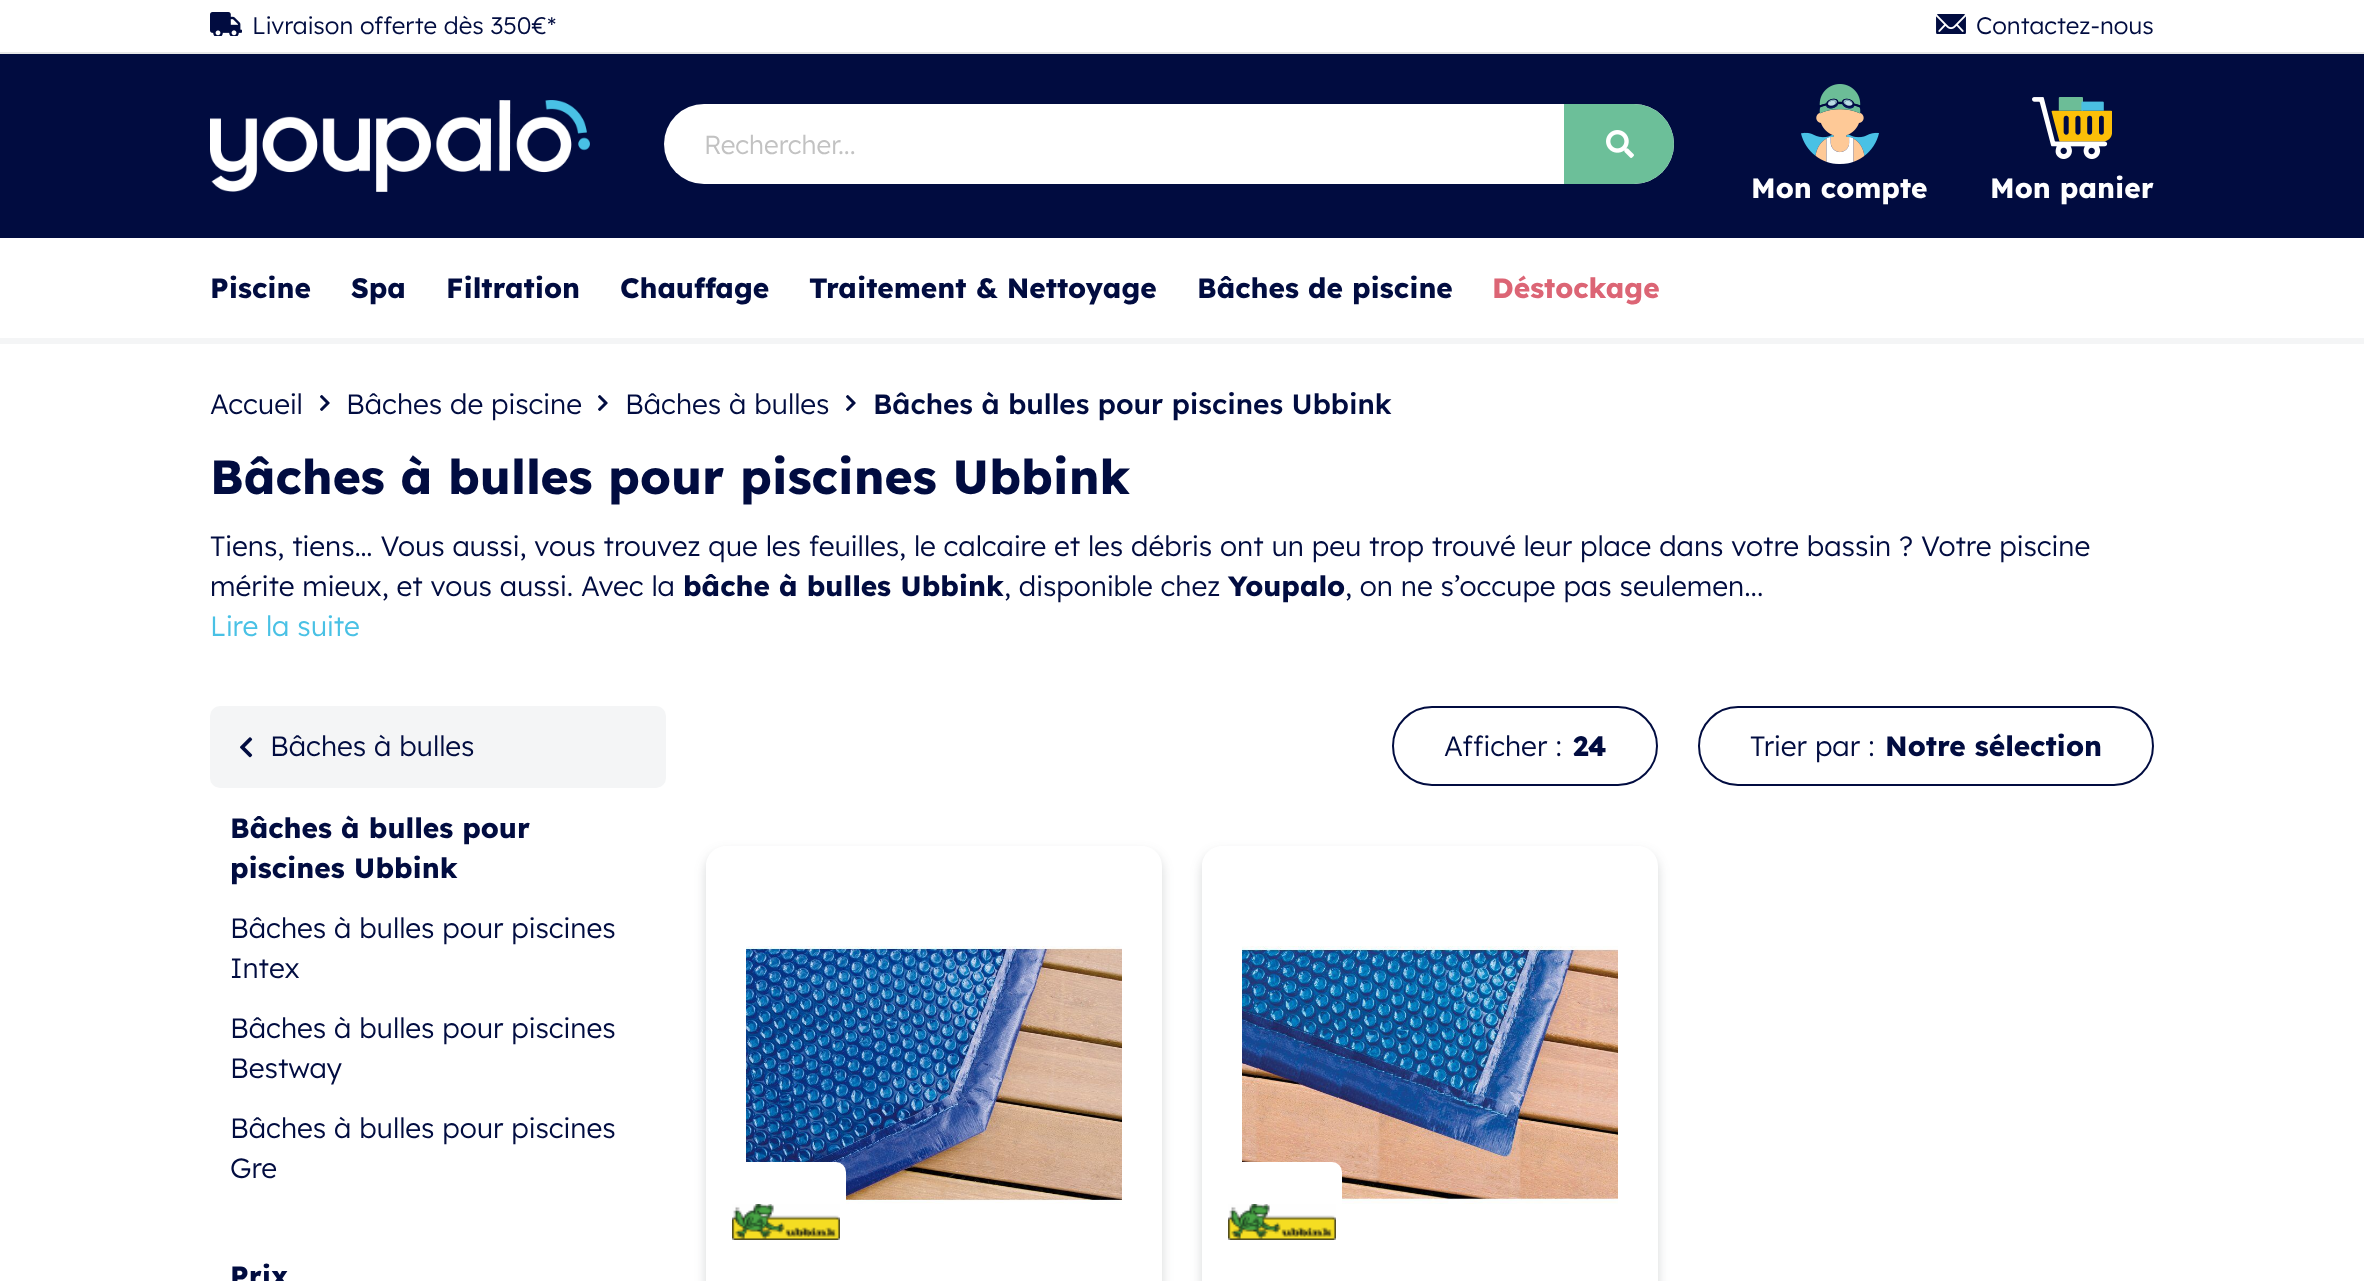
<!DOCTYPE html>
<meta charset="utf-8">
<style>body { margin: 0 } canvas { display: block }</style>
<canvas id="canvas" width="2364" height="1281"></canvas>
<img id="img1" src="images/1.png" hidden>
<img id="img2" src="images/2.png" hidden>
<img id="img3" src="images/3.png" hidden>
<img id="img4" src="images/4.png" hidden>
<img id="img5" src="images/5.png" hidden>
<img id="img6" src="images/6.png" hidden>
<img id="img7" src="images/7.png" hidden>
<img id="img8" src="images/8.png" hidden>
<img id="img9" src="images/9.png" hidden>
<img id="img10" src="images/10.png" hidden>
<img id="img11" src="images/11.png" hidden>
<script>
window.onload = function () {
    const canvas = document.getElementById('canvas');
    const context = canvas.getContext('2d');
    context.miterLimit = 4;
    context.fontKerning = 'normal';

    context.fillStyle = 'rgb(255, 255, 255)';
    context.fillRect(0, 0, 2364, 1281);
    context.fillStyle = 'rgb(1, 12, 64)';
    context.fillRect(0, 54, 2364, 184);
    context.drawImage(document.getElementById('img1'), 210, 12, 32, 24);
    context.drawImage(document.getElementById('img2'), 1936, 14, 30, 20);
    context.fillStyle = 'rgb(232, 232, 232)';
    context.fillRect(0, 52, 2364, 2);
    context.drawImage(document.getElementById('img3'), 210, 100, 380, 92);
    context.fillStyle = 'rgb(255, 255, 255)';
    context.beginPath();
    context.roundRect(664, 104, 1010, 80, 40);
    context.fill();
    context.fillStyle = 'rgb(108, 191, 153)';
    context.beginPath();
    context.roundRect(1564, 104, 110, 80, [0, 40, 40, 0]);
    context.fill();
    context.drawImage(document.getElementById('img4'), 1606, 130, 28, 28);
    context.drawImage(document.getElementById('img5'), 1801, 84, 78, 80);
    context.drawImage(document.getElementById('img6'), 2032, 97, 80, 62);
    context.fillStyle = 'rgb(244, 245, 246)';
    context.fillRect(0, 338, 2364, 6);
    context.drawImage(document.getElementById('img7'), 320, 395, 10, 16);
    context.drawImage(document.getElementById('img7'), 598, 395, 10, 16);
    context.drawImage(document.getElementById('img7'), 846, 395, 10, 16);
    context.beginPath();
    context.roundRect(210, 706, 456, 82, 10);
    context.fill();
    context.drawImage(document.getElementById('img8'), 240, 737, 13, 21);
    context.beginPath();
    context.roundRect(1393, 707, 264, 78, 39);
    context.strokeStyle = 'rgb(1, 12, 64)';
    context.lineWidth = 2;
    context.stroke();
    context.beginPath();
    context.roundRect(1699, 707, 454, 78, 39);
    context.stroke();
    context.save();
    context.beginPath();
    context.moveTo(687, 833);
    context.lineTo(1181, 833);
    context.lineTo(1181, 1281);
    context.lineTo(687, 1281);
    context.closePath();
    context.moveTo(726, 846);
    context.lineTo(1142, 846);
    context.bezierCurveTo(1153, 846, 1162, 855, 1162, 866);
    context.lineTo(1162, 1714);
    context.bezierCurveTo(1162, 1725, 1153, 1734, 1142, 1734);
    context.lineTo(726, 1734);
    context.bezierCurveTo(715, 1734, 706, 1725, 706, 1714);
    context.lineTo(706, 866);
    context.bezierCurveTo(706, 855, 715, 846, 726, 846);
    context.closePath();
    context.clip('evenodd');
    context.fillStyle = 'rgba(51, 58, 65, 0.2)';
    context.filter = 'blur(6px)';
    context.beginPath();
    context.roundRect(706, 852, 456, 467, 20);
    context.fill();
    context.filter = 'none';
    context.restore();
    context.drawImage(document.getElementById('img9'), 746, 946, 376, 258);
    context.fillStyle = 'rgb(255, 255, 255)';
    context.beginPath();
    context.roundRect(726, 1162, 120, 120, 10);
    context.fill();
    context.drawImage(document.getElementById('img10'), 732, 1204, 108, 36);
    context.save();
    context.beginPath();
    context.moveTo(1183, 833);
    context.lineTo(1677, 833);
    context.lineTo(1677, 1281);
    context.lineTo(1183, 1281);
    context.closePath();
    context.moveTo(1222, 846);
    context.lineTo(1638, 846);
    context.bezierCurveTo(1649, 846, 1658, 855, 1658, 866);
    context.lineTo(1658, 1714);
    context.bezierCurveTo(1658, 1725, 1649, 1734, 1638, 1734);
    context.lineTo(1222, 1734);
    context.bezierCurveTo(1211, 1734, 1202, 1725, 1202, 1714);
    context.lineTo(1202, 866);
    context.bezierCurveTo(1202, 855, 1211, 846, 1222, 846);
    context.closePath();
    context.clip('evenodd');
    context.fillStyle = 'rgba(51, 58, 65, 0.2)';
    context.filter = 'blur(6px)';
    context.beginPath();
    context.roundRect(1202, 852, 456, 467, 20);
    context.fill();
    context.filter = 'none';
    context.restore();
    context.drawImage(document.getElementById('img11'), 1242, 946, 376, 258);
    context.beginPath();
    context.roundRect(1222, 1162, 120, 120, 10);
    context.fill();
    context.drawImage(document.getElementById('img10'), 1228, 1204, 108, 36);
    context.font = '24px Lexend';
    context.fillStyle = 'rgb(1, 12, 64)';
    context.fillText('Livraison offerte dès 350€*', 252, 34);
    context.fillText('Contactez-nous', 1976, 34);
    context.font = '26px Lexend';
    context.fillStyle = 'rgb(194, 194, 194)';
    context.fillText('Rechercher...', 704, 154);
    context.font = 'bold 28px Lexend';
    context.fillStyle = 'rgb(255, 255, 255)';
    context.fillText('Mon compte', 1751, 198);
    context.fillText('Mon panier', 1990, 198);
    context.fillStyle = 'rgb(1, 12, 64)';
    context.fillText('Piscine', 210, 298);
    context.fillText('Spa', 351, 298);
    context.fillText('Filtration', 446, 298);
    context.fillText('Chauffage', 620, 298);
    context.fillText('Traitement & Nettoyage', 809, 298);
    context.fillText('Bâches de piscine', 1197, 298);
    context.fillStyle = 'rgb(220, 101, 117)';
    context.fillText('Déstockage', 1492, 298);
    context.font = '28px Lexend';
    context.fillStyle = 'rgb(1, 12, 64)';
    context.fillText('Accueil', 210, 414);
    context.fillText('Bâches de piscine', 346, 414);
    context.fillText('Bâches à bulles', 625, 414);
    context.font = '600 28px Lexend';
    context.fillText('Bâches à bulles pour piscines Ubbink', 873, 414);
    context.font = 'bold 48px Lexend';
    context.fillText('Bâches à bulles pour piscines Ubbink', 210, 494);
    context.font = '28px Lexend';
    context.fillText('Tiens, tiens… Vous aussi, vous trouvez que les feuilles, le calcaire et les débris ont un peu trop trouvé leur place dans votre bassin ? Votre piscine', 210, 556);
    context.fillText('mérite mieux, et vous aussi. Avec la', 210, 596);
    context.font = 'bold 28px Lexend';
    context.fillText('bâche à bulles Ubbink', 683, 596);
    context.font = '28px Lexend';
    context.fillText(', disponible chez', 1004, 596);
    context.font = 'bold 28px Lexend';
    context.fillText('Youpalo', 1228, 596);
    context.font = '28px Lexend';
    context.fillText(', on ne s’occupe pas seulemen...', 1345, 596);
    context.fillStyle = 'rgb(73, 193, 229)';
    context.fillText('Lire la suite', 210, 636);
    context.fillStyle = 'rgb(1, 12, 64)';
    context.fillText('Bâches à bulles', 270, 756);
    context.font = 'bold 28px Lexend';
    context.fillText('Bâches à bulles pour', 230, 838);
    context.fillText('piscines Ubbink', 230, 878);
    context.font = '28px Lexend';
    context.fillText('Bâches à bulles pour piscines', 230, 938);
    context.fillText('Intex', 230, 978);
    context.fillText('Bâches à bulles pour piscines', 230, 1038);
    context.fillText('Bestway', 230, 1078);
    context.fillText('Bâches à bulles pour piscines', 230, 1138);
    context.fillText('Gre', 230, 1178);
    context.font = 'bold 28px Lexend';
    context.fillText('Prix', 230, 1286);
    context.font = '28px Lexend';
    context.fillText('Afficher :', 1444, 756);
    context.font = 'bold 28px Lexend';
    context.fillText('24', 1573, 756);
    context.font = '28px Lexend';
    context.fillText('Trier par :', 1750, 756);
    context.font = 'bold 28px Lexend';
    context.fillText('Notre sélection', 1885, 756);
};
</script>
